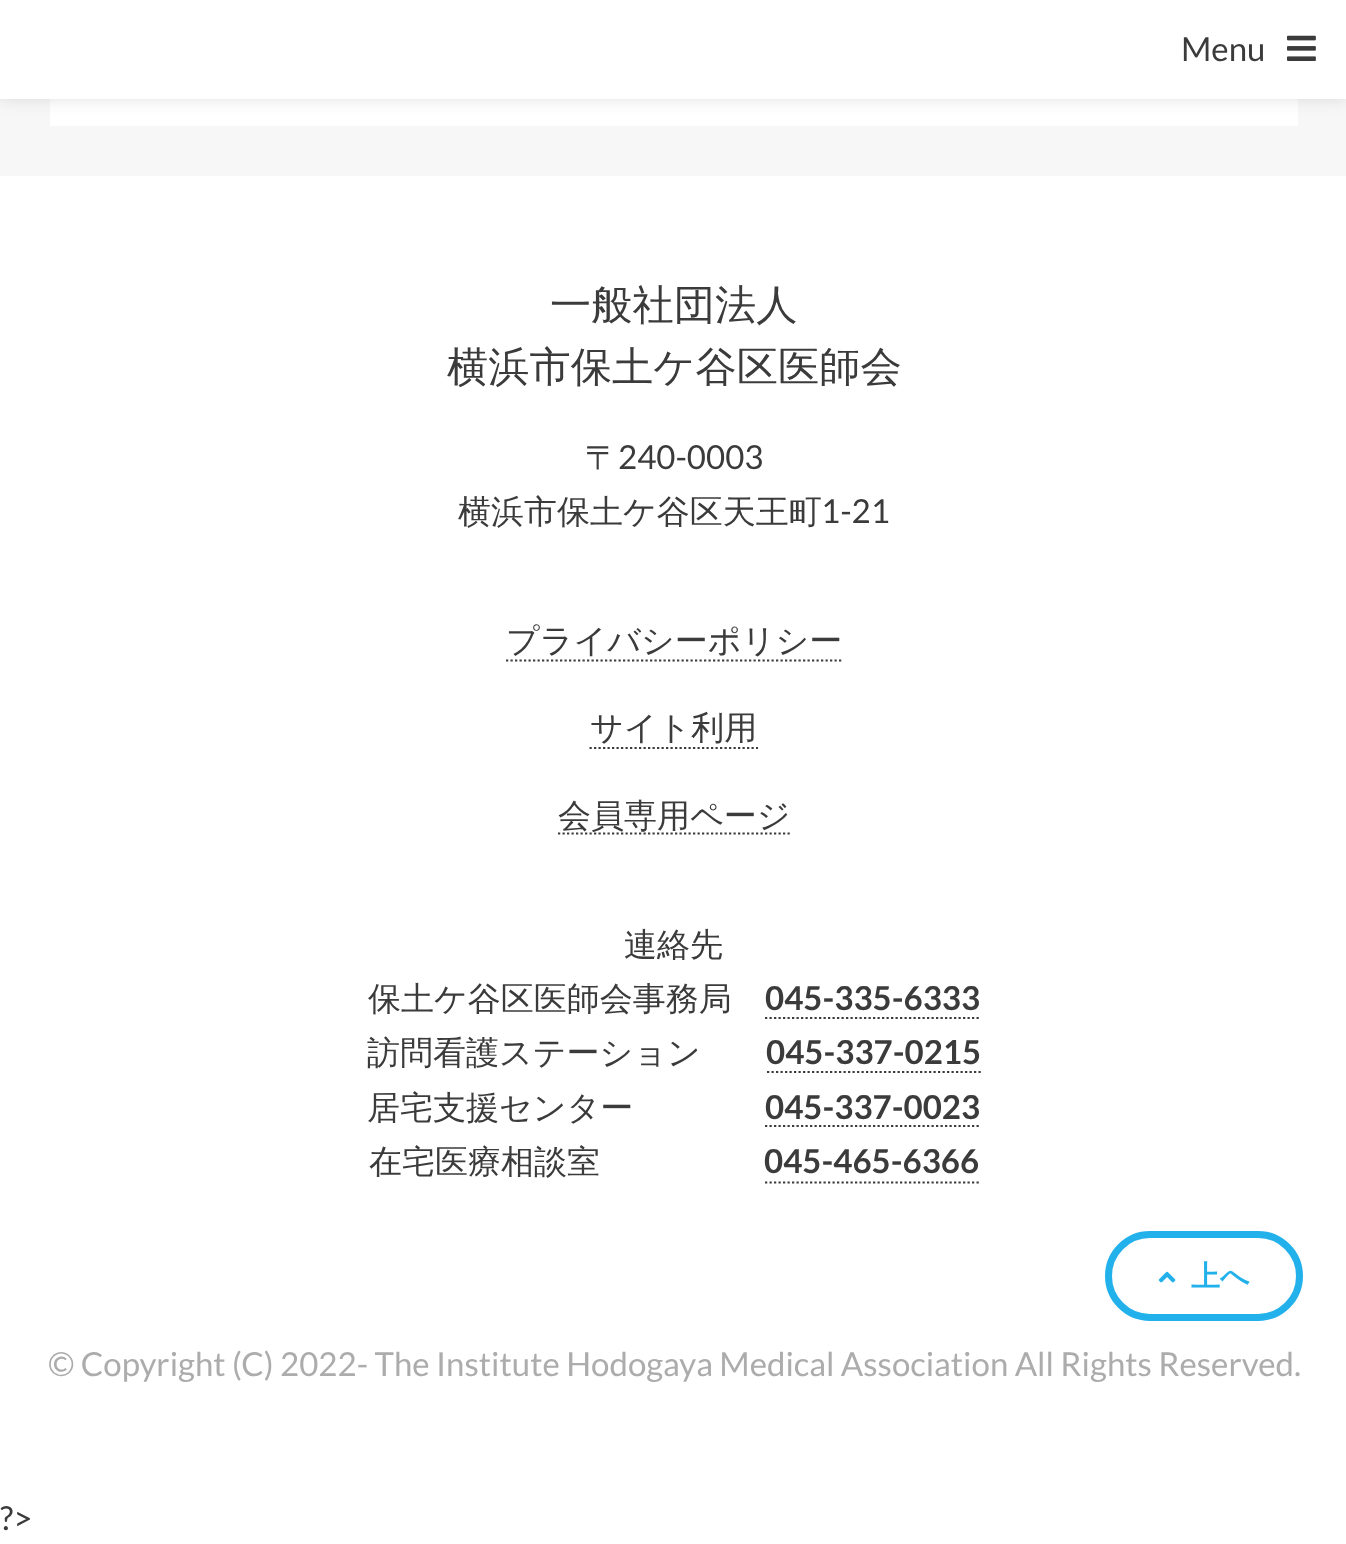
<!DOCTYPE html>
<meta charset="utf-8">
<style>body { margin: 0 } canvas { display: block }</style>
<canvas id="canvas" width="1346" height="1544"></canvas>
<img id="img1" src="images/1.png" hidden>
<img id="img2" src="images/2.png" hidden>
<script>
window.onload = function () {
    const canvas = document.getElementById('canvas');
    const context = canvas.getContext('2d');
    context.miterLimit = 4;
    context.fontKerning = 'normal';

    context.fillStyle = 'rgb(255, 255, 255)';
    context.fillRect(0, 0, 1346, 1544);
    context.fillStyle = 'rgb(247, 247, 247)';
    context.fillRect(0, 99, 1346, 77);
    context.fillStyle = 'rgb(255, 255, 255)';
    context.fillRect(50, 99, 1248, 27);
    context.fillStyle = 'rgba(0, 0, 0, 0.12)';
    context.filter = 'blur(8px)';
    context.beginPath();
    context.rect(0, 0, 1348, 99);
    context.fill();
    context.filter = 'none';
    context.fillStyle = 'rgb(255, 255, 255)';
    context.fillRect(0, 0, 1346, 99);
    context.drawImage(document.getElementById('img1'), 1287, 35, 29, 26);
    context.beginPath();
    context.moveTo(506, 660.5);
    context.lineTo(841.5, 660.5);
    context.strokeStyle = 'rgb(59, 59, 59)';
    context.lineWidth = 2.2;
    context.setLineDash([2.25, 2.25]);
    context.stroke();
    context.beginPath();
    context.moveTo(589.5, 748);
    context.lineTo(758, 748);
    context.stroke();
    context.beginPath();
    context.moveTo(558, 833.5);
    context.lineTo(790, 833.5);
    context.stroke();
    context.beginPath();
    context.moveTo(765, 1018);
    context.lineTo(979, 1018);
    context.stroke();
    context.beginPath();
    context.moveTo(767, 1072);
    context.lineTo(981, 1072);
    context.stroke();
    context.beginPath();
    context.moveTo(765, 1126);
    context.lineTo(981, 1126);
    context.stroke();
    context.beginPath();
    context.moveTo(765, 1182.5);
    context.lineTo(979, 1182.5);
    context.stroke();
    context.beginPath();
    context.roundRect(1108.5, 1234.5, 191, 83, 41.5);
    context.strokeStyle = 'rgb(35, 177, 236)';
    context.lineWidth = 7;
    context.setLineDash([]);
    context.stroke();
    context.drawImage(document.getElementById('img2'), 1158, 1271, 18, 12);
    context.font = '33px Lato';
    context.fillStyle = 'rgb(59, 59, 59)';
    context.fillText('Menu', 1181, 61);
    context.font = '500 41.25px WenQuanYi Zen Hei';
    context.fillText('一般社団法人', 550, 319);
    context.fillText('横浜市保土ケ谷区医師会', 447, 381);
    context.font = '500 33px WenQuanYi Zen Hei';
    context.fillText('〒', 585, 469);
    context.font = '33px Lato';
    context.fillText('240-0003', 618, 469);
    context.font = '500 33px WenQuanYi Zen Hei';
    context.fillText('横浜市保土ケ谷区天王町', 458, 523);
    context.font = '33px Lato';
    context.fillText('1-21', 821, 523);
    context.font = '500 33px WenQuanYi Zen Hei';
    context.fillText('プライバシーポリシー', 506, 652);
    context.fillText('サイト利用', 590, 739);
    context.fillText('会員専用ページ', 558, 827);
    context.fillText('連絡先', 624, 956);
    context.fillText('保土ケ谷区医師会事務局', 368, 1010);
    context.font = 'bold 33px Lato';
    context.fillText('045-335-6333', 765, 1010);
    context.font = '500 33px WenQuanYi Zen Hei';
    context.fillText('訪問看護ステーション', 367, 1064);
    context.font = 'bold 33px Lato';
    context.fillText('045-337-0215', 766, 1064);
    context.font = '500 33px WenQuanYi Zen Hei';
    context.fillText('居宅支援センター', 367, 1119);
    context.font = 'bold 33px Lato';
    context.fillText('045-337-0023', 765, 1119);
    context.font = '500 33px WenQuanYi Zen Hei';
    context.fillText('在宅医療相談室', 369, 1173);
    context.font = 'bold 33px Lato';
    context.fillText('045-465-6366', 764, 1173);
    context.font = '33px Lato';
    context.fillStyle = 'rgb(172, 172, 172)';
    context.fillText('© Copyright (C) 2022- The Institute Hodogaya Medical Association All Rights Reserved.', 48, 1376);
    context.font = 'bold 29px WenQuanYi Zen Hei';
    context.fillStyle = 'rgb(35, 177, 236)';
    context.fillText('上へ', 1191, 1286);
    context.font = '33px Lato';
    context.fillStyle = 'rgb(59, 59, 59)';
    context.fillText('?>', 0, 1530);
};
</script>
